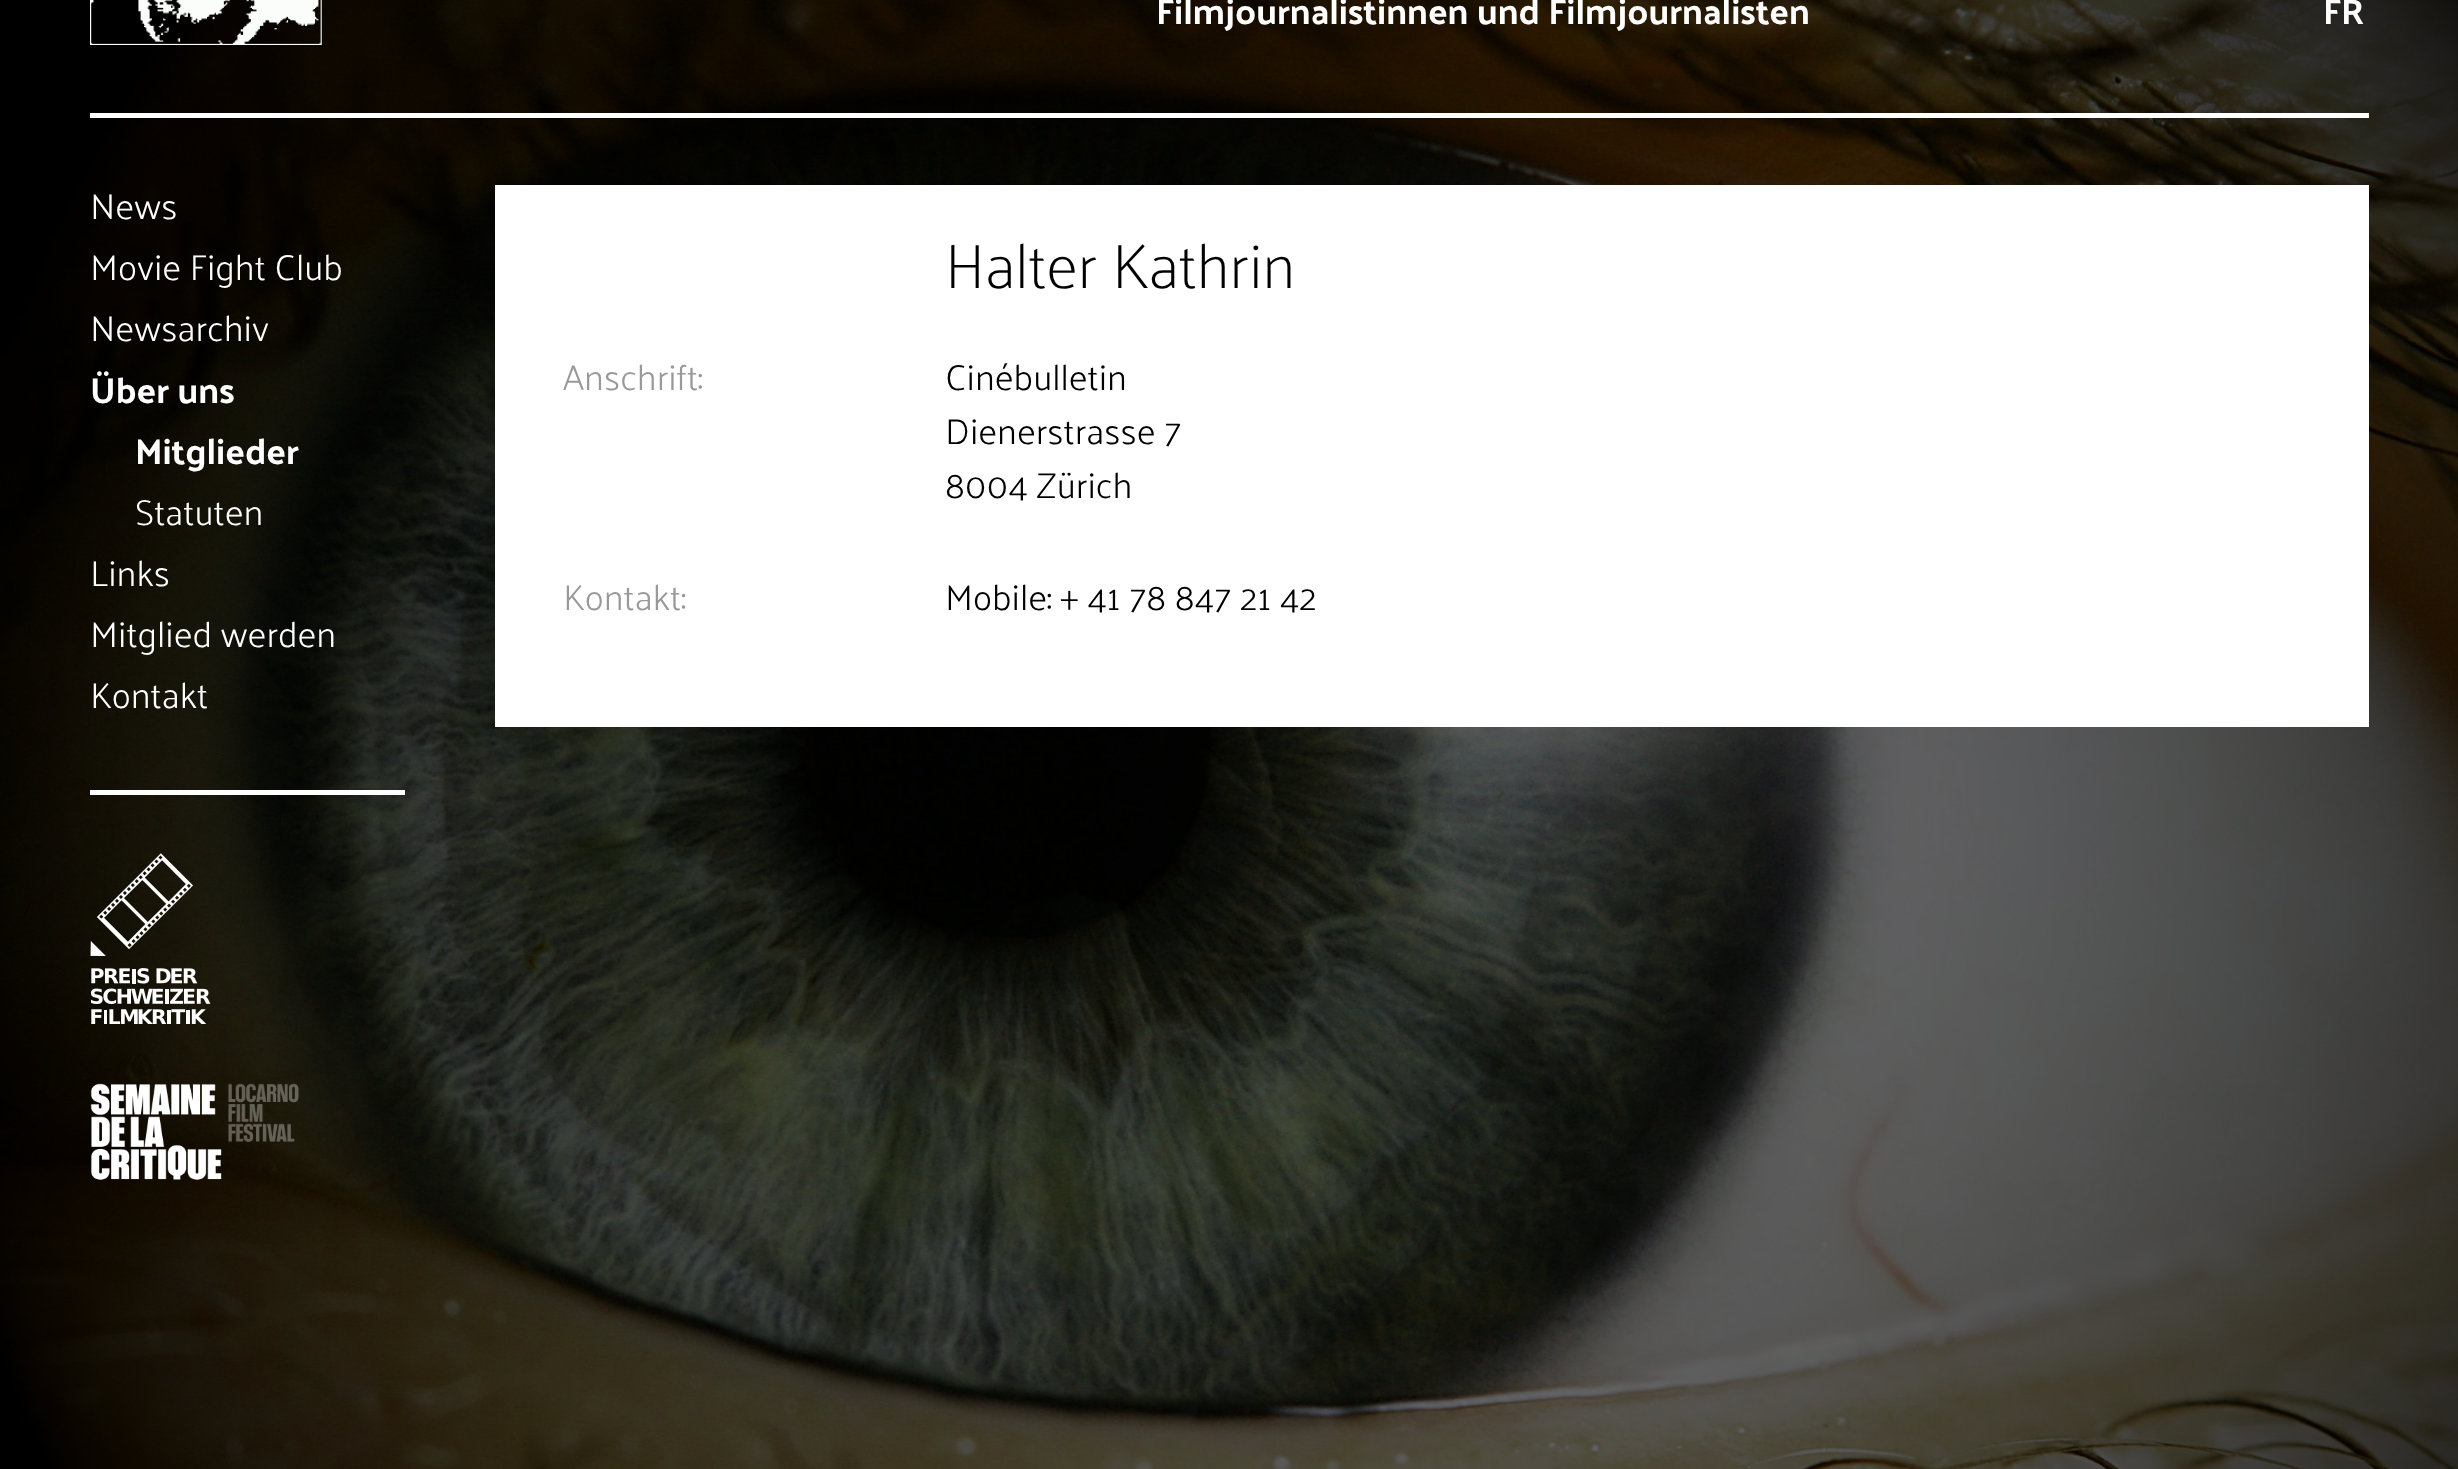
<!DOCTYPE html>
<meta charset="utf-8">
<style>body { margin: 0 } canvas { display: block }</style>
<canvas id="canvas" width="2458" height="1469"></canvas>
<img id="img1" src="images/1.png" hidden>
<img id="img2" src="images/2.png" hidden>
<img id="img3" src="images/3.png" hidden>
<img id="img4" src="images/4.png" hidden>
<script>
window.onload = function () {
    const canvas = document.getElementById('canvas');
    const context = canvas.getContext('2d');
    context.miterLimit = 4;
    context.fontKerning = 'normal';

    context.fillStyle = 'rgb(255, 255, 255)';
    context.fillRect(0, 0, 2458, 1469);
    context.drawImage(document.getElementById('img1'), 0, 0, 2458, 1469);
    context.fillRect(90, 113, 2279, 5);
    context.drawImage(document.getElementById('img2'), 90, 0, 232, 45);
    context.fillRect(90, 790, 315, 5);
    context.drawImage(document.getElementById('img3'), 90, 853, 121, 171);
    context.drawImage(document.getElementById('img4'), 90, 1083, 209, 97);
    context.fillRect(495, 185, 1874, 542);
    context.font = 'bold 36px Palanquin';
    context.fillText('Filmjournalistinnen und Filmjournalisten', 1156, 24);
    context.fillText('FR', 2323, 24);
    context.font = '300 36px Palanquin';
    context.fillText('News', 90, 219);
    context.fillText('Movie Fight Club', 90, 280);
    context.fillText('Newsarchiv', 90, 341);
    context.font = 'bold 36px Palanquin';
    context.fillText('Über uns', 90, 403);
    context.fillText('Mitglieder', 135, 464);
    context.font = '300 36px Palanquin';
    context.fillText('Statuten', 135, 525);
    context.fillText('Links', 90, 586);
    context.fillText('Mitglied werden', 90, 647);
    context.fillText('Kontakt', 90, 708);
    context.font = '100 63px Palanquin';
    context.fillStyle = 'rgb(0, 0, 0)';
    context.fillText('Halter Kathrin', 945, 288);
    context.font = '300 36px Palanquin';
    context.fillStyle = 'rgb(153, 153, 153)';
    context.fillText('Anschrift:', 563, 390);
    context.fillStyle = 'rgb(0, 0, 0)';
    context.fillText('Cinébulletin', 945, 390);
    context.fillText('Dienerstrasse 7', 945, 444);
    context.fillText('8004 Zürich', 945, 498);
    context.fillStyle = 'rgb(153, 153, 153)';
    context.fillText('Kontakt:', 563, 610);
    context.fillStyle = 'rgb(0, 0, 0)';
    context.fillText('Mobile: + 41 78 847 21 42', 945, 610);
};
</script>
